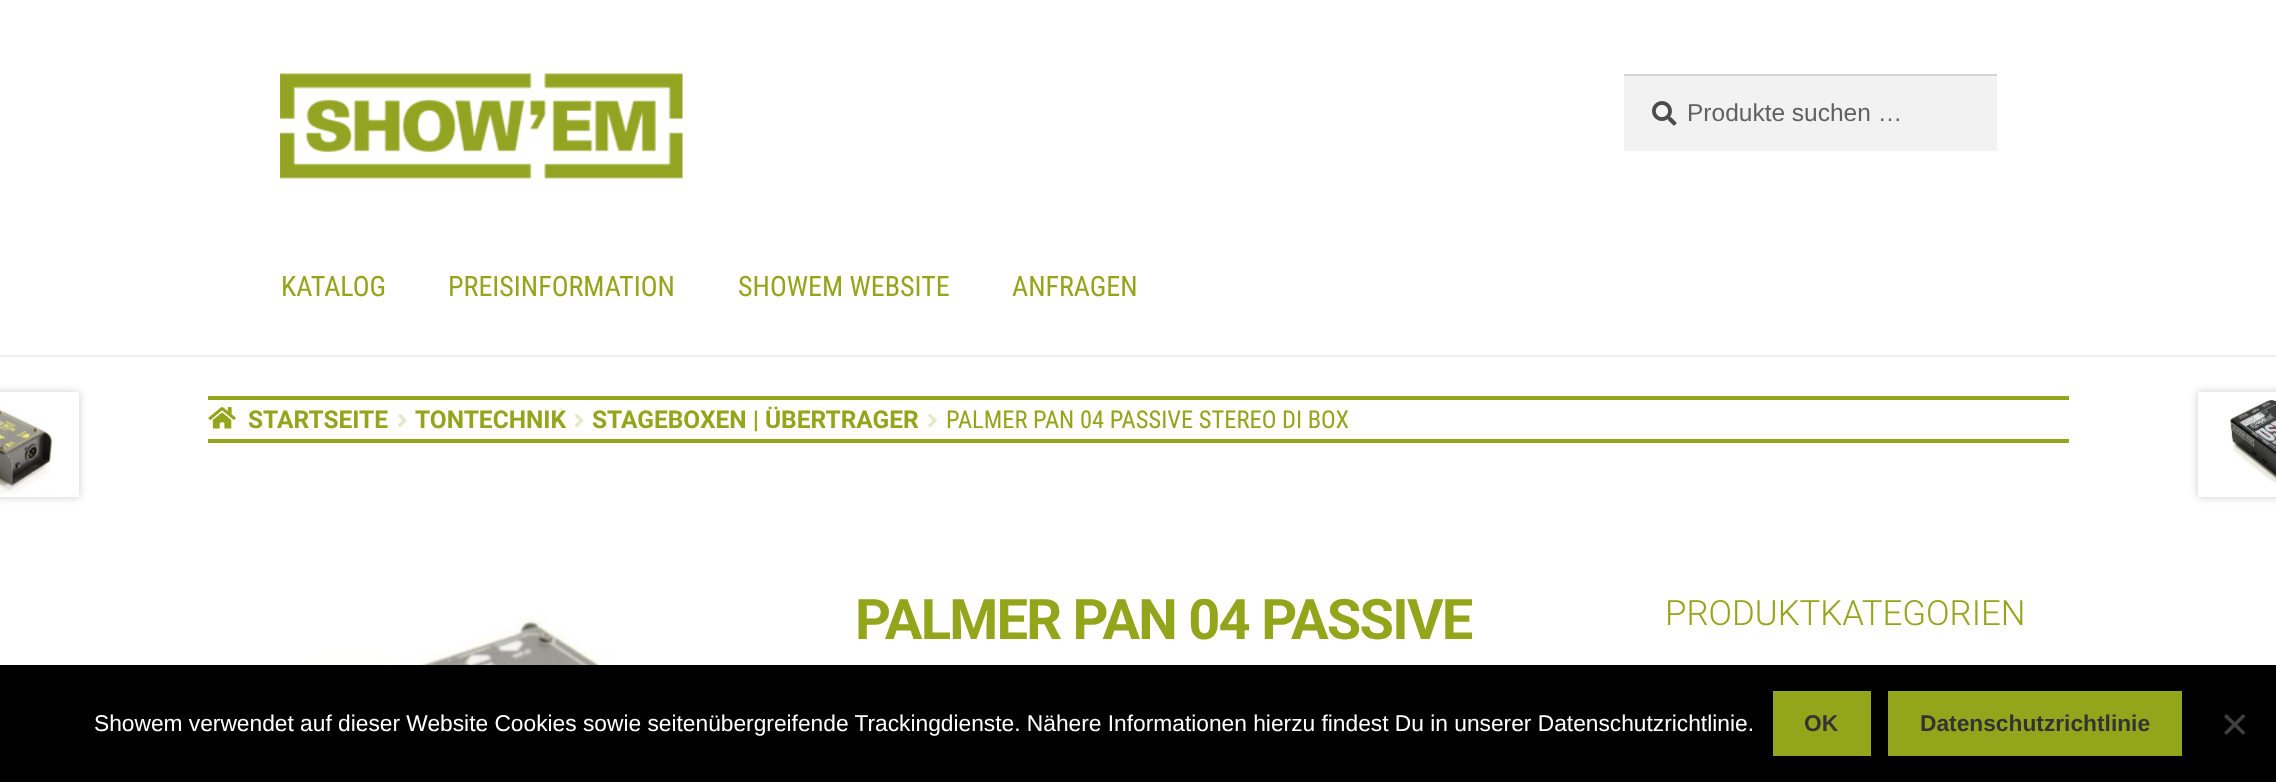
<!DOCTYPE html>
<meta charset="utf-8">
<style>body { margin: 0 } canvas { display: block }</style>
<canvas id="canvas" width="2276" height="782"></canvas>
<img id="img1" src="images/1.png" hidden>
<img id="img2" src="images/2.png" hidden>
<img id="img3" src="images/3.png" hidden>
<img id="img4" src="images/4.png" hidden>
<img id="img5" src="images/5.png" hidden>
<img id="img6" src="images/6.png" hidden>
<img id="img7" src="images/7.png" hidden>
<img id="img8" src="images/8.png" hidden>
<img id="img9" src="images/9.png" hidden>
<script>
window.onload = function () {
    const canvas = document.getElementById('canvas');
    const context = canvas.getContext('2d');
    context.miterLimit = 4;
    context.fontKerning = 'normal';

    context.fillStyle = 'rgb(255, 255, 255)';
    context.fillRect(0, 0, 2276, 782);
    context.fillStyle = 'rgb(240, 240, 240)';
    context.fillRect(0, 355, 2276, 2);
    context.drawImage(document.getElementById('img1'), 280, 73, 403, 106);
    context.fillStyle = 'rgb(242, 242, 242)';
    context.fillRect(1624, 76, 373, 75);
    context.drawImage(document.getElementById('img2'), 1652, 101, 25, 25);
    context.fillStyle = 'rgb(212, 212, 212)';
    context.fillRect(1624, 74, 373, 2);
    context.fillStyle = 'rgb(147, 165, 27)';
    context.fillRect(208, 396, 1861, 4);
    context.fillRect(208, 439, 1861, 4);
    context.drawImage(document.getElementById('img3'), 208, 407, 28, 22);
    context.drawImage(document.getElementById('img4'), 398, 414, 9, 13);
    context.drawImage(document.getElementById('img5'), 574, 413, 10, 15);
    context.drawImage(document.getElementById('img6'), 928, 413, 9, 15);
    context.fillStyle = 'rgba(0, 0, 0, 0.2)';
    context.filter = 'blur(4.5px)';
    context.beginPath();
    context.rect(-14, 392, 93, 105);
    context.fill();
    context.filter = 'none';
    context.fillStyle = 'rgb(255, 255, 255)';
    context.fillRect(0, 392, 79, 105);
    context.drawImage(document.getElementById('img7'), 0, 408, 53, 89);
    context.save();
    context.beginPath();
    context.moveTo(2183, 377);
    context.lineTo(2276, 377);
    context.lineTo(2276, 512);
    context.lineTo(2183, 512);
    context.closePath();
    context.moveTo(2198, 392);
    context.lineTo(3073, 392);
    context.lineTo(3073, 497);
    context.lineTo(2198, 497);
    context.closePath();
    context.clip('evenodd');
    context.fillStyle = 'rgba(0, 0, 0, 0.2)';
    context.filter = 'blur(4.5px)';
    context.beginPath();
    context.rect(2198, 392, 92, 105);
    context.fill();
    context.filter = 'none';
    context.restore();
    context.drawImage(document.getElementById('img8'), 2229, 400, 47, 84);
    context.drawImage(document.getElementById('img9'), 208, 616, 502, 49);
    context.fillStyle = 'rgb(0, 0, 0)';
    context.fillRect(0, 665, 2276, 117);
    context.fillStyle = 'rgb(147, 165, 27)';
    context.fillRect(1773, 691, 98, 65);
    context.fillRect(1888, 691, 294, 65);
    context.fillStyle = 'rgb(64, 64, 64)';
    context.beginPath();
    context.moveTo(2243, 714);
    context.lineTo(2245.5, 716.5);
    context.lineTo(2226.5, 735);
    context.lineTo(2224, 732.5);
    context.closePath();
    context.fill();
    context.beginPath();
    context.moveTo(2224, 716.5);
    context.lineTo(2226.5, 714);
    context.lineTo(2245.5, 732.5);
    context.lineTo(2243, 735);
    context.closePath();
    context.fill();
    context.font = '24.5px Liberation Sans';
    context.fillStyle = 'rgb(97, 97, 97)';
    context.fillText('Produkte suchen …', 1687, 121);
    context.font = '28px Roboto Condensed';
    context.fillStyle = 'rgb(147, 165, 27)';
    context.fillText('KATALOG', 281, 296);
    context.fillText('PREISINFORMATION', 448, 296);
    context.fillText('SHOWEM WEBSITE', 738, 296);
    context.fillText('ANFRAGEN', 1012, 296);
    context.font = 'bold 24.5px Roboto';
    context.fillText('STARTSEITE', 248, 428);
    context.fillText('TONTECHNIK', 415, 428);
    context.fillText('STAGEBOXEN | ÜBERTRAGER', 592, 428);
    context.font = '24.5px Roboto Condensed';
    context.fillText('PALMER PAN 04 PASSIVE STEREO DI BOX', 946, 428);
    context.letterSpacing = '-1.75px';
    context.font = 'bold 56px Roboto';
    context.fillText('PALMER PAN 04 PASSIVE', 855, 639);
    context.letterSpacing = '0px';
    context.font = '300 34.75px Roboto';
    context.fillText('PRODUKTKATEGORIEN', 1665, 625);
    context.font = '22.75px Liberation Sans';
    context.fillStyle = 'rgb(255, 255, 255)';
    context.fillText('Showem verwendet auf dieser Website Cookies sowie seitenübergreifende Trackingdienste. Nähere Informationen hierzu findest Du in unserer Datenschutzrichtlinie.', 94, 731);
    context.font = 'bold 22.75px Liberation Sans';
    context.fillStyle = 'rgb(51, 51, 51)';
    context.fillText('OK', 1804, 731);
    context.fillText('Datenschutzrichtlinie', 1920, 731);
};
</script>
